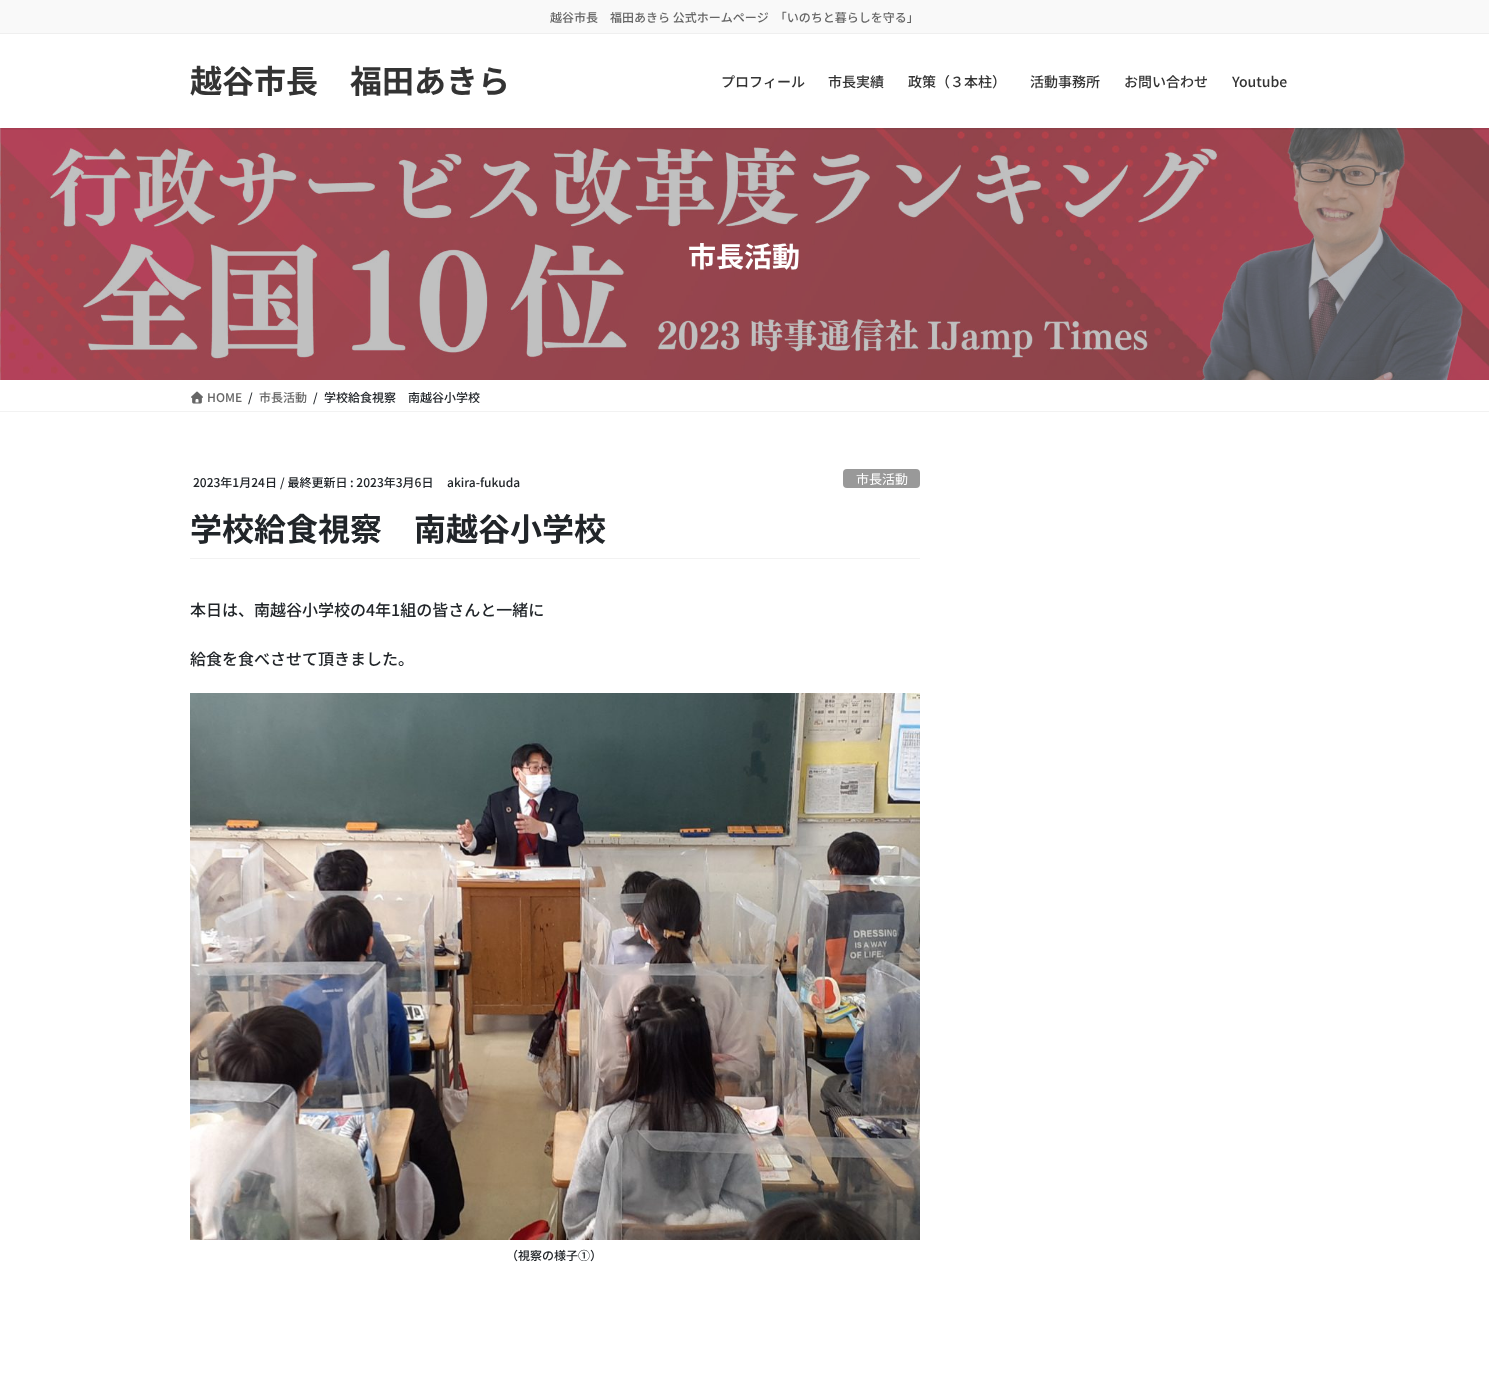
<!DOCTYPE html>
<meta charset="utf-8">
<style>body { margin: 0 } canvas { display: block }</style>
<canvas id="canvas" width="1489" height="1384"></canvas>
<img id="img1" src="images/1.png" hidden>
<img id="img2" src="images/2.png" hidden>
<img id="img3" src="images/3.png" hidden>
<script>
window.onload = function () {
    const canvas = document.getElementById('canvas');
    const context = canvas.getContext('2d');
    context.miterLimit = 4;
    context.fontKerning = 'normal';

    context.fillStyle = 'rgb(255, 255, 255)';
    context.fillRect(0, 0, 1489, 1384);
    context.drawImage(document.getElementById('img1'), 0, 128, 1489, 252);
    context.save();
    context.beginPath();
    context.rect(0, 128, 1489, 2);
    context.clip();
    context.fillStyle = 'rgba(0, 0, 0, 0.1)';
    context.filter = 'blur(1.5px)';
    context.beginPath();
    context.rect(0, -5, 1489, 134);
    context.fill();
    context.filter = 'none';
    context.restore();
    context.fillStyle = 'rgb(249, 249, 249)';
    context.fillRect(0, 0, 1489, 33);
    context.fillStyle = 'rgb(239, 239, 239)';
    context.fillRect(0, 33, 1489, 1);
    context.fillStyle = 'rgb(242, 242, 242)';
    context.fillRect(0, 411, 1489, 1);
    context.drawImage(document.getElementById('img2'), 191, 391, 12, 13);
    context.fillRect(190, 558, 730, 1);
    context.fillStyle = 'rgb(153, 153, 153)';
    context.beginPath();
    context.roundRect(843, 469, 77, 19, 4);
    context.fill();
    context.drawImage(document.getElementById('img3'), 190, 693, 730, 547);
    context.font = '500 12px Noto Sans JP';
    context.fillStyle = 'rgb(102, 102, 102)';
    context.fillText('越谷市長　福田あきら 公式ホームページ　「いのちと暮らしを守る」', 550, 22);
    context.font = 'bold 32px Noto Sans JP';
    context.fillStyle = 'rgb(51, 51, 51)';
    context.fillText('越谷市長　福田あきら', 190, 93);
    context.font = '500 14px Noto Sans JP';
    context.fillText('プロフィール', 721, 87);
    context.fillText('市長実績', 828, 87);
    context.fillText('政策（３本柱）', 908, 87);
    context.fillText('活動事務所', 1030, 87);
    context.fillText('お問い合わせ', 1124, 87);
    context.fillText('Youtube', 1232, 87);
    context.font = 'bold 28px Noto Sans JP';
    context.fillStyle = 'rgb(255, 255, 255)';
    context.fillText('市長活動', 688, 267);
    context.font = '500 12px Noto Sans JP';
    context.fillStyle = 'rgb(102, 102, 102)';
    context.fillText('HOME', 207, 402);
    context.fillStyle = 'rgb(33, 37, 41)';
    context.fillText('/', 248, 402);
    context.fillStyle = 'rgb(102, 102, 102)';
    context.fillText('市長活動', 259, 402);
    context.fillStyle = 'rgb(33, 37, 41)';
    context.fillText('/', 313, 402);
    context.fillText('学校給食視察　南越谷小学校', 324, 402);
    context.fillText('2023年1月24日', 193, 487);
    context.fillText('/ 最終更新日 : 2023年3月6日', 280, 487);
    context.fillText('akira-fukuda', 447, 487);
    context.font = '13px Noto Sans JP';
    context.fillStyle = 'rgb(255, 255, 255)';
    context.fillText('市長活動', 856, 484);
    context.font = 'bold 32px Noto Sans JP';
    context.fillStyle = 'rgb(33, 37, 41)';
    context.fillText('学校給食視察　南越谷小学校', 190, 541);
    context.font = '500 16px Noto Sans JP';
    context.fillText('本日は、南越谷小学校の4年1組の皆さんと一緒に', 190, 616);
    context.fillText('給食を食べさせて頂きました。', 190, 665);
    context.font = '500 12px Noto Sans JP';
    context.fillText('（視察の様子①）', 506, 1260);
};
</script>
